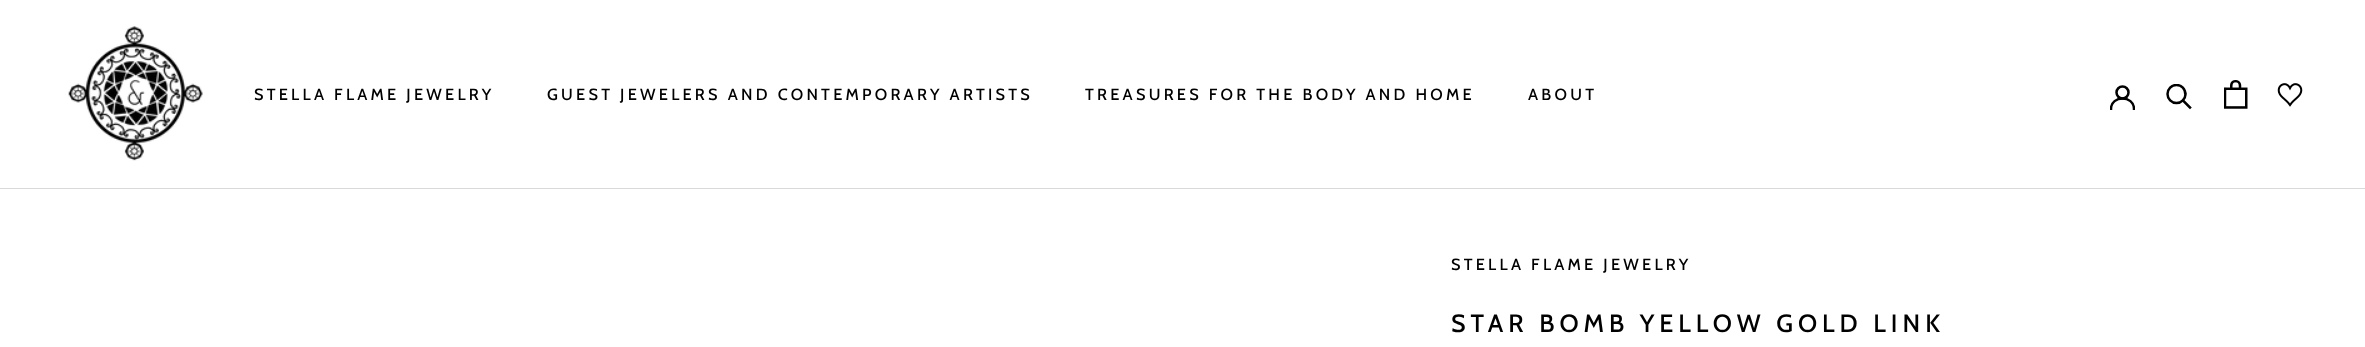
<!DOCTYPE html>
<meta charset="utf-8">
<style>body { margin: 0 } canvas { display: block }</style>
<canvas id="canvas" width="2365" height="347"></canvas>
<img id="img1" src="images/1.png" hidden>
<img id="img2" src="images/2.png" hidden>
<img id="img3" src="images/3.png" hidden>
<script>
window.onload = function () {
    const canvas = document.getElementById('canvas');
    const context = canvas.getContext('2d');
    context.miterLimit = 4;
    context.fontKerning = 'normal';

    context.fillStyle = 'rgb(255, 255, 255)';
    context.fillRect(0, 0, 2365, 347);
    context.fillStyle = 'rgb(217, 217, 217)';
    context.fillRect(0, 188, 2365, 1);
    context.drawImage(document.getElementById('img1'), 68, 26, 135, 135);
    context.save();
    context.beginPath();
    context.rect(2110, 85, 25, 25);
    context.clip();
    context.beginPath();
    context.moveTo(2111, 109);
    context.bezierCurveTo(2111, 95, 2134, 95, 2134, 109);
    context.strokeStyle = 'rgb(0, 0, 0)';
    context.lineWidth = 2.5;
    context.lineCap = 'square';
    context.stroke();
    context.restore();
    context.beginPath();
    context.arc(2122.5, 92.5, 6, 0, 2 * Math.PI);
    context.strokeStyle = 'rgb(0, 0, 0)';
    context.lineWidth = 2.5;
    context.stroke();
    context.beginPath();
    context.moveTo(2190, 107.5);
    context.lineTo(2183, 100.5);
    context.lineCap = 'square';
    context.stroke();
    context.save();
    context.beginPath();
    context.rect(2166, 84, 27, 26);
    context.clip();
    context.beginPath();
    context.arc(2176.5, 94, 9, 0, 2 * Math.PI);
    context.stroke();
    context.restore();
    context.drawImage(document.getElementById('img2'), 2224, 80, 24, 29);
    context.drawImage(document.getElementById('img3'), 2277, 83, 26, 24);
    context.letterSpacing = '3.25px';
    context.font = '500 16.25px Cabin';
    context.fillStyle = 'rgb(0, 0, 0)';
    context.fillText('STELLA FLAME JEWELRY', 254, 100);
    context.fillText('GUEST JEWELERS AND CONTEMPORARY ARTISTS', 547, 100);
    context.fillText('TREASURES FOR THE BODY AND HOME', 1085, 100);
    context.fillText('ABOUT', 1528, 100);
    context.fillText('STELLA FLAME JEWELRY', 1451, 270);
    context.letterSpacing = '5px';
    context.font = '500 25px Cabin';
    context.fillText('STAR BOMB YELLOW GOLD LINK', 1451, 332);
};
</script>
